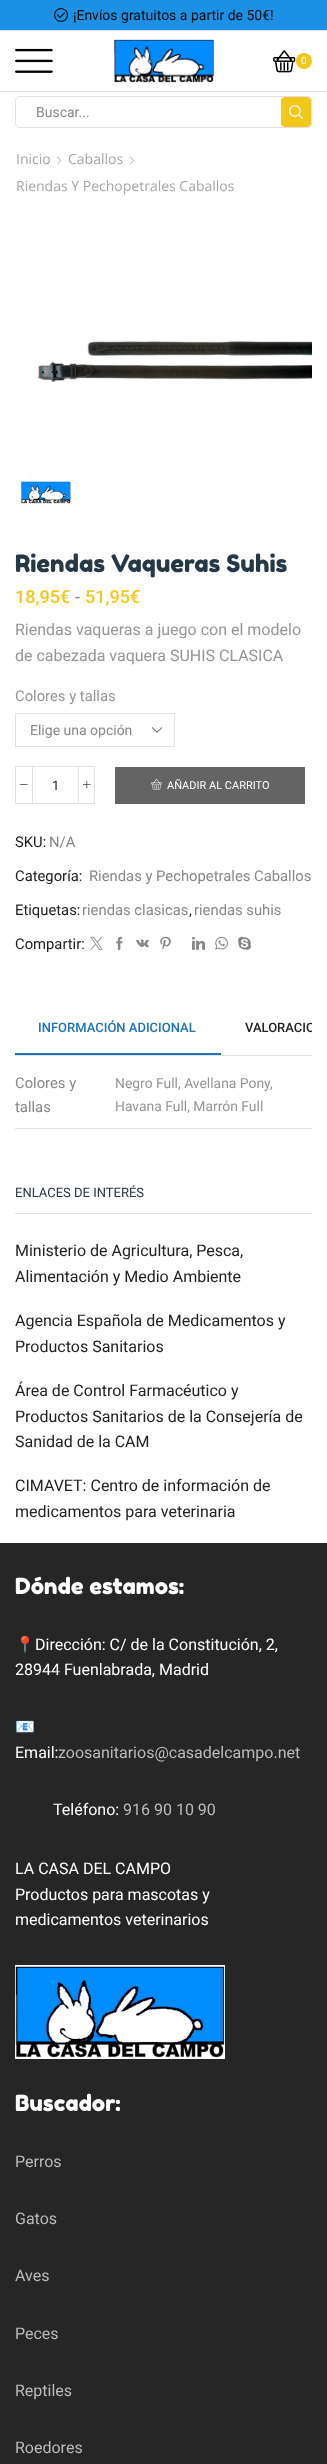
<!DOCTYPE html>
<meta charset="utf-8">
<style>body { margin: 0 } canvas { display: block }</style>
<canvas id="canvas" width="327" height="2464"></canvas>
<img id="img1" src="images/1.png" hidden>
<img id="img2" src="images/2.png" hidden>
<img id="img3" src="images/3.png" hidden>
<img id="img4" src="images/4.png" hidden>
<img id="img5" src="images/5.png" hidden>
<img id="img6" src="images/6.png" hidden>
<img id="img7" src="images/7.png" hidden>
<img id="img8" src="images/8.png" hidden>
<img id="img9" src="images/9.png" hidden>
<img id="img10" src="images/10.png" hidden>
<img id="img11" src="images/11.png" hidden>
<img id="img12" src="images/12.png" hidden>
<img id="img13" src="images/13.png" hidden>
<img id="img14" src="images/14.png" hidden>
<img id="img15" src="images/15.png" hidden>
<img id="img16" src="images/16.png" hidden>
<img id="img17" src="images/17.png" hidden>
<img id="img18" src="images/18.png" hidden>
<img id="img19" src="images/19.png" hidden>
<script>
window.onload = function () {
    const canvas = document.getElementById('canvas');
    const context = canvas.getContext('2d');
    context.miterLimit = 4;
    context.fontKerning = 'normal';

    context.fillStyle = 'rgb(255, 255, 255)';
    context.fillRect(0, 0, 327, 2464);
    context.fillStyle = 'rgb(27, 145, 229)';
    context.fillRect(0, 0, 327, 30);
    context.fillStyle = 'rgb(225, 225, 225)';
    context.fillRect(0, 30, 327, 1);
    context.drawImage(document.getElementById('img1'), 54, 8, 14, 14);
    context.drawImage(document.getElementById('img2'), 15, 48, 38, 25);
    context.drawImage(document.getElementById('img3'), 114, 39, 100, 44);
    context.drawImage(document.getElementById('img4'), 273, 50, 23, 23);
    context.fillStyle = 'rgb(243, 200, 28)';
    context.beginPath();
    context.arc(304, 61, 8, 0, 2 * Math.PI);
    context.fill();
    context.fillStyle = 'rgb(225, 225, 225)';
    context.fillRect(0, 91, 327, 1);
    context.beginPath();
    context.roundRect(15.5, 96.5, 296, 31, 3.5);
    context.strokeStyle = 'rgb(225, 225, 225)';
    context.stroke();
    context.save();
    context.beginPath();
    context.roundRect(16, 97, 295, 30, 3);
    context.clip();
    context.fillStyle = 'rgb(243, 200, 28)';
    context.beginPath();
    context.roundRect(281, 97, 30, 30, 4);
    context.fill();
    context.restore();
    context.drawImage(document.getElementById('img5'), 289, 105, 14, 14);
    context.drawImage(document.getElementById('img6'), 57, 156, 4, 9);
    context.drawImage(document.getElementById('img6'), 130, 156, 4, 9);
    context.drawImage(document.getElementById('img7'), 21, 340, 291, 164);
    context.drawImage(document.getElementById('img8'), 152, 727, 10, 6);
    context.strokeRect(15.5, 713.5, 159, 33);
    context.strokeRect(15.5, 766.5, 17, 37);
    context.drawImage(document.getElementById('img9'), 20, 784, 8, 1);
    context.fillRect(33, 766, 45, 1);
    context.fillRect(33, 803, 45, 1);
    context.strokeRect(78.5, 766.5, 16, 37);
    context.drawImage(document.getElementById('img10'), 83, 780, 8, 9);
    context.fillStyle = 'rgb(100, 100, 100)';
    context.fillRect(115, 767, 190, 37);
    context.drawImage(document.getElementById('img11'), 151, 778, 11, 12);
    context.drawImage(document.getElementById('img12'), 90, 936, 13, 14);
    context.drawImage(document.getElementById('img13'), 116, 936, 7, 14);
    context.drawImage(document.getElementById('img14'), 136, 939, 13, 8);
    context.drawImage(document.getElementById('img15'), 160, 936, 11, 14);
    context.drawImage(document.getElementById('img16'), 192, 936, 13, 14);
    context.drawImage(document.getElementById('img17'), 215, 936, 13, 14);
    context.drawImage(document.getElementById('img18'), 238, 936, 13, 14);
    context.fillStyle = 'rgb(225, 225, 225)';
    context.fillRect(15, 1055, 297, 1);
    context.fillStyle = 'rgb(30, 115, 190)';
    context.fillRect(15, 1053, 206, 2);
    context.fillStyle = 'rgb(225, 225, 225)';
    context.fillRect(15, 1128, 297, 1);
    context.fillRect(15, 1213, 297, 1);
    context.fillStyle = 'rgb(38, 38, 38)';
    context.fillRect(0, 1543, 327, 921);
    context.drawImage(document.getElementById('img19'), 15, 1965, 210, 94);
    context.font = '14px Roboto';
    context.fillStyle = 'rgb(10, 10, 10)';
    context.fillText('¡Envíos gratuitos a partir de 50€!', 73, 20);
    context.font = '10px Roboto';
    context.fillStyle = 'rgb(255, 255, 255)';
    context.fillText('0', 301, 64);
    context.font = '14px Roboto';
    context.fillStyle = 'rgb(136, 136, 136)';
    context.fillText('Buscar...', 36, 117);
    context.font = '14px Open Sans';
    context.fillStyle = 'rgb(166, 166, 166)';
    context.fillText('Inicio', 16, 164);
    context.fillText('Caballos', 68, 164);
    context.fillText('Riendas Y Pechopetrales Caballos', 16, 191);
    context.font = '24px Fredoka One';
    context.fillStyle = 'rgb(38, 55, 70)';
    context.fillText('Riendas Vaqueras Suhis', 15, 572);
    context.font = '500 18px Roboto';
    context.fillStyle = 'rgb(243, 200, 28)';
    context.fillText('18,95€', 15, 603);
    context.font = '18px Roboto';
    context.fillStyle = 'rgb(136, 136, 136)';
    context.fillText('-', 75, 603);
    context.font = '500 18px Roboto';
    context.fillStyle = 'rgb(243, 200, 28)';
    context.fillText('51,95€', 85, 603);
    context.font = '16px Roboto';
    context.fillStyle = 'rgb(150, 149, 149)';
    context.fillText('Riendas vaqueras a juego con el modelo', 15, 635);
    context.fillText('de cabezada vaquera SUHIS CLASICA', 15, 661);
    context.font = '14.8px Roboto';
    context.fillText('Colores y tallas', 15, 701);
    context.font = '14px Roboto';
    context.fillStyle = 'rgb(136, 136, 136)';
    context.fillText('Elige una opción', 30, 735);
    context.font = '13px Roboto';
    context.fillStyle = 'rgb(34, 34, 34)';
    context.fillText('1', 52, 790);
    context.font = '11px Roboto';
    context.fillStyle = 'rgb(255, 255, 255)';
    context.fillText('AÑADIR AL CARRITO', 167, 789);
    context.font = '14.8px Roboto';
    context.fillStyle = 'rgb(34, 34, 34)';
    context.fillText('SKU:', 15, 847);
    context.fillStyle = 'rgb(136, 136, 136)';
    context.fillText('N/A', 49, 847);
    context.fillStyle = 'rgb(34, 34, 34)';
    context.fillText('Categoría:', 15, 881);
    context.fillStyle = 'rgb(136, 136, 136)';
    context.fillText('Riendas y Pechopetrales Caballos', 89, 881);
    context.fillStyle = 'rgb(34, 34, 34)';
    context.fillText('Etiquetas:', 15, 915);
    context.fillStyle = 'rgb(136, 136, 136)';
    context.fillText('riendas clasicas', 82, 915);
    context.fillStyle = 'rgb(34, 34, 34)';
    context.fillText(',', 189, 915);
    context.fillStyle = 'rgb(136, 136, 136)';
    context.fillText('riendas suhis', 194, 915);
    context.fillStyle = 'rgb(34, 34, 34)';
    context.fillText('Compartir:', 15, 949);
    context.font = '500 13px Roboto';
    context.fillStyle = 'rgb(30, 115, 190)';
    context.fillText('INFORMACIÓN ADICIONAL', 38, 1032);
    context.save();
    context.beginPath();
    context.rect(15, 1001, 297, 54);
    context.clip();
    context.fillStyle = 'rgb(34, 34, 34)';
    context.fillText('VALORACIO', 245, 1032);
    context.restore();
    context.font = '14.8px Roboto';
    context.fillStyle = 'rgb(136, 136, 136)';
    context.fillText('Colores y', 15, 1088);
    context.fillText('tallas', 15, 1112);
    context.font = '13.9px Roboto';
    context.fillStyle = 'rgb(150, 149, 149)';
    context.fillText('Negro Full, Avellana Pony,', 115, 1088);
    context.fillText('Havana Full, Marrón Full', 115, 1111);
    context.font = '13px Roboto';
    context.fillStyle = 'rgb(38, 55, 70)';
    context.fillText('ENLACES DE INTERÉS', 15, 1197);
    context.font = '16px Roboto';
    context.fillStyle = 'rgb(34, 34, 34)';
    context.fillText('Ministerio de Agricultura, Pesca,', 15, 1256);
    context.fillText('Alimentación y Medio Ambiente', 15, 1282);
    context.fillText('Agencia Española de Medicamentos y', 15, 1326);
    context.fillText('Productos Sanitarios', 15, 1352);
    context.fillText('Área de Control Farmacéutico y', 15, 1396);
    context.fillText('Productos Sanitarios de la Consejería de', 15, 1422);
    context.fillText('Sanidad de la CAM', 15, 1447);
    context.fillText('CIMAVET: Centro de información de', 15, 1491);
    context.fillText('medicamentos para veterinaria', 15, 1517);
    context.font = '22.25px Fredoka One';
    context.fillStyle = 'rgb(255, 255, 255)';
    context.fillText('Dónde estamos:', 15, 1594);
    context.font = '16px Noto Color Emoji';
    context.fillText('📍', 15, 1650);
    context.font = '16px Roboto';
    context.fillText('Dirección: C/ de la Constitución, 2,', 35, 1650);
    context.fillText('28944 Fuenlabrada, Madrid', 15, 1675);
    context.font = '16px Noto Color Emoji';
    context.fillText('📧', 15, 1732);
    context.font = '16px Roboto';
    context.fillText('Email:', 15, 1758);
    context.fillStyle = 'rgb(187, 187, 187)';
    context.fillText('zoosanitarios@casadelcampo.net', 58, 1758);
    context.fillStyle = 'rgb(255, 255, 255)';
    context.fillText('Teléfono:', 53, 1815);
    context.fillStyle = 'rgb(187, 187, 187)';
    context.fillText('916 90 10 90', 123, 1815);
    context.fillStyle = 'rgb(255, 255, 255)';
    context.fillText('LA CASA DEL CAMPO', 15, 1874);
    context.fillText('Productos para mascotas y', 15, 1900);
    context.fillText('medicamentos veterinarios', 15, 1925);
    context.font = '22.25px Fredoka One';
    context.fillText('Buscador:', 15, 2111);
    context.font = '16px Roboto';
    context.fillStyle = 'rgb(187, 187, 187)';
    context.fillText('Perros', 15, 2167);
    context.fillText('Gatos', 15, 2224);
    context.fillText('Aves', 15, 2281);
    context.fillText('Peces', 15, 2339);
    context.fillText('Reptiles', 15, 2396);
    context.fillText('Roedores', 15, 2453);
};
</script>
